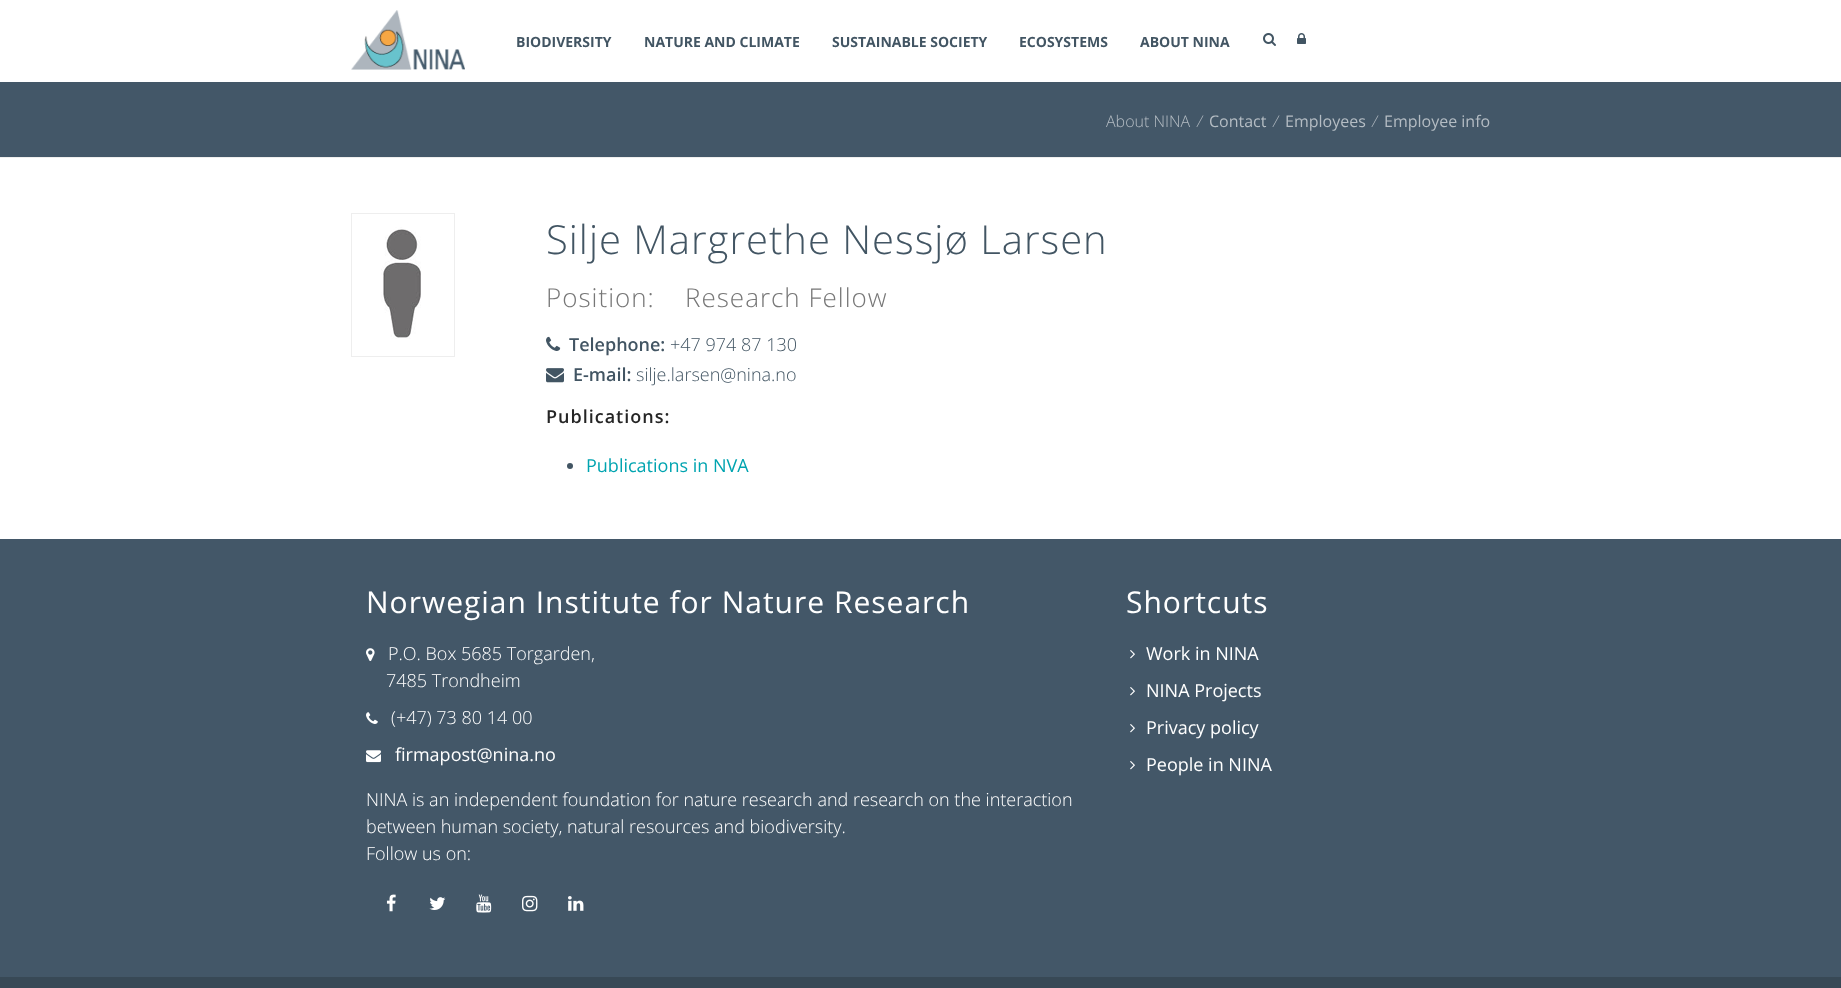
<!DOCTYPE html>
<meta charset="utf-8">
<style>body { margin: 0 } canvas { display: block }</style>
<canvas id="canvas" width="1841" height="988"></canvas>
<img id="img1" src="images/1.png" hidden>
<img id="img2" src="images/2.png" hidden>
<img id="img3" src="images/3.png" hidden>
<img id="img4" src="images/4.png" hidden>
<img id="img5" src="images/5.png" hidden>
<img id="img6" src="images/6.png" hidden>
<img id="img7" src="images/7.png" hidden>
<img id="img8" src="images/8.png" hidden>
<img id="img9" src="images/9.png" hidden>
<img id="img10" src="images/10.png" hidden>
<img id="img11" src="images/11.png" hidden>
<img id="img12" src="images/12.png" hidden>
<img id="img13" src="images/13.png" hidden>
<img id="img14" src="images/14.png" hidden>
<img id="img15" src="images/15.png" hidden>
<script>
window.onload = function () {
    const canvas = document.getElementById('canvas');
    const context = canvas.getContext('2d');
    context.miterLimit = 4;
    context.fontKerning = 'normal';

    context.fillStyle = 'rgb(56, 73, 86)';
    context.fillRect(0, 0, 1841, 988);
    context.fillStyle = 'rgb(255, 255, 255)';
    context.fillRect(0, 0, 1841, 82);
    context.drawImage(document.getElementById('img1'), 351, 10, 114, 60);
    context.drawImage(document.getElementById('img2'), 1263, 33, 13, 13);
    context.drawImage(document.getElementById('img3'), 1297, 33, 9, 11);
    context.fillStyle = 'rgb(67, 87, 104)';
    context.fillRect(0, 82, 1841, 75);
    context.fillStyle = 'rgb(238, 238, 238)';
    context.fillRect(0, 157, 1841, 1);
    context.fillStyle = 'rgb(255, 255, 255)';
    context.fillRect(0, 158, 1841, 381);
    context.strokeStyle = 'rgb(238, 238, 238)';
    context.strokeRect(351.5, 213.5, 103, 143);
    context.drawImage(document.getElementById('img4'), 381, 227, 40, 112);
    context.drawImage(document.getElementById('img5'), 546, 336, 15, 15);
    context.drawImage(document.getElementById('img6'), 546, 368, 18, 15);
    context.fillStyle = 'rgb(66, 85, 99)';
    context.beginPath();
    context.arc(570, 466, 3, 0, 2 * Math.PI);
    context.fill();
    context.fillStyle = 'rgb(67, 87, 104)';
    context.fillRect(0, 539, 1841, 438);
    context.drawImage(document.getElementById('img7'), 366, 648, 9, 13);
    context.drawImage(document.getElementById('img8'), 366, 712, 12, 12);
    context.drawImage(document.getElementById('img9'), 366, 750, 15, 13);
    context.drawImage(document.getElementById('img10'), 386, 894, 10, 18);
    context.drawImage(document.getElementById('img11'), 429, 897, 17, 13);
    context.drawImage(document.getElementById('img12'), 476, 894, 16, 19);
    context.drawImage(document.getElementById('img13'), 522, 895, 16, 17);
    context.drawImage(document.getElementById('img14'), 568, 896, 16, 15);
    context.drawImage(document.getElementById('img15'), 1130, 650, 5, 9);
    context.drawImage(document.getElementById('img15'), 1130, 687, 5, 9);
    context.drawImage(document.getElementById('img15'), 1130, 724, 5, 9);
    context.drawImage(document.getElementById('img15'), 1130, 761, 5, 9);
    context.font = 'bold 14px Open Sans';
    context.fillStyle = 'rgb(66, 85, 99)';
    context.fillText('BIODIVERSITY', 516, 47);
    context.fillText('NATURE AND CLIMATE', 644, 47);
    context.fillText('SUSTAINABLE SOCIETY', 832, 47);
    context.fillText('ECOSYSTEMS', 1019, 47);
    context.fillText('ABOUT NINA', 1140, 47);
    context.font = '300 16px Open Sans';
    context.fillStyle = 'rgb(180, 188, 195)';
    context.fillText('About NINA', 1106, 127);
    context.fillText('⁄', 1199, 127);
    context.font = '16px Open Sans';
    context.fillText('Contact', 1209, 127);
    context.font = '300 16px Open Sans';
    context.fillText('⁄', 1275, 127);
    context.font = '16px Open Sans';
    context.fillText('Employees', 1285, 127);
    context.font = '300 16px Open Sans';
    context.fillText('⁄', 1374, 127);
    context.font = '16px Open Sans';
    context.fillText('Employee info', 1384, 127);
    context.letterSpacing = '1px';
    context.font = '300 40px Open Sans';
    context.fillStyle = 'rgb(66, 85, 99)';
    context.fillText('Silje Margrethe Nessjø Larsen', 546, 254);
    context.font = '300 26px Open Sans';
    context.fillStyle = 'rgb(119, 119, 119)';
    context.fillText('Position:', 546, 307);
    context.fillText('Research Fellow', 685, 307);
    context.letterSpacing = '0px';
    context.font = '600 18px Open Sans';
    context.fillStyle = 'rgb(66, 85, 99)';
    context.fillText('Telephone:', 569, 351);
    context.font = '300 18px Open Sans';
    context.fillText('+47 974 87 130', 670, 351);
    context.font = '600 18px Open Sans';
    context.fillText('E-mail:', 573, 381);
    context.font = '300 18px Open Sans';
    context.fillText('silje.larsen@nina.no', 636, 381);
    context.letterSpacing = '1px';
    context.font = '600 18px Open Sans';
    context.fillStyle = 'rgb(37, 37, 37)';
    context.fillText('Publications:', 546, 423);
    context.letterSpacing = '0px';
    context.font = '18px Open Sans';
    context.fillStyle = 'rgb(0, 164, 176)';
    context.fillText('Publications in NVA', 586, 472);
    context.letterSpacing = '1px';
    context.font = '30px Open Sans';
    context.fillStyle = 'rgb(255, 255, 255)';
    context.fillText('Norwegian Institute for Nature Research', 366, 613);
    context.letterSpacing = '0px';
    context.font = '300 18px Open Sans';
    context.fillText('P.O. Box 5685 Torgarden,', 388, 660);
    context.fillText('7485 Trondheim', 386, 687);
    context.fillText('(+47) 73 80 14 00', 391, 724);
    context.font = '18px Open Sans';
    context.fillText('firmapost@nina.no', 395, 761);
    context.font = '300 18px Open Sans';
    context.fillText('NINA is an independent foundation for nature research and research on the interaction', 366, 806);
    context.fillText('between human society, natural resources and biodiversity.', 366, 833);
    context.fillText('Follow us on:', 366, 860);
    context.letterSpacing = '1px';
    context.font = '30px Open Sans';
    context.fillText('Shortcuts', 1126, 613);
    context.letterSpacing = '0px';
    context.font = '18px Open Sans';
    context.fillText('Work in NINA', 1146, 660);
    context.fillText('NINA Projects', 1146, 697);
    context.fillText('Privacy policy', 1146, 734);
    context.fillText('People in NINA', 1146, 771);
};
</script>
